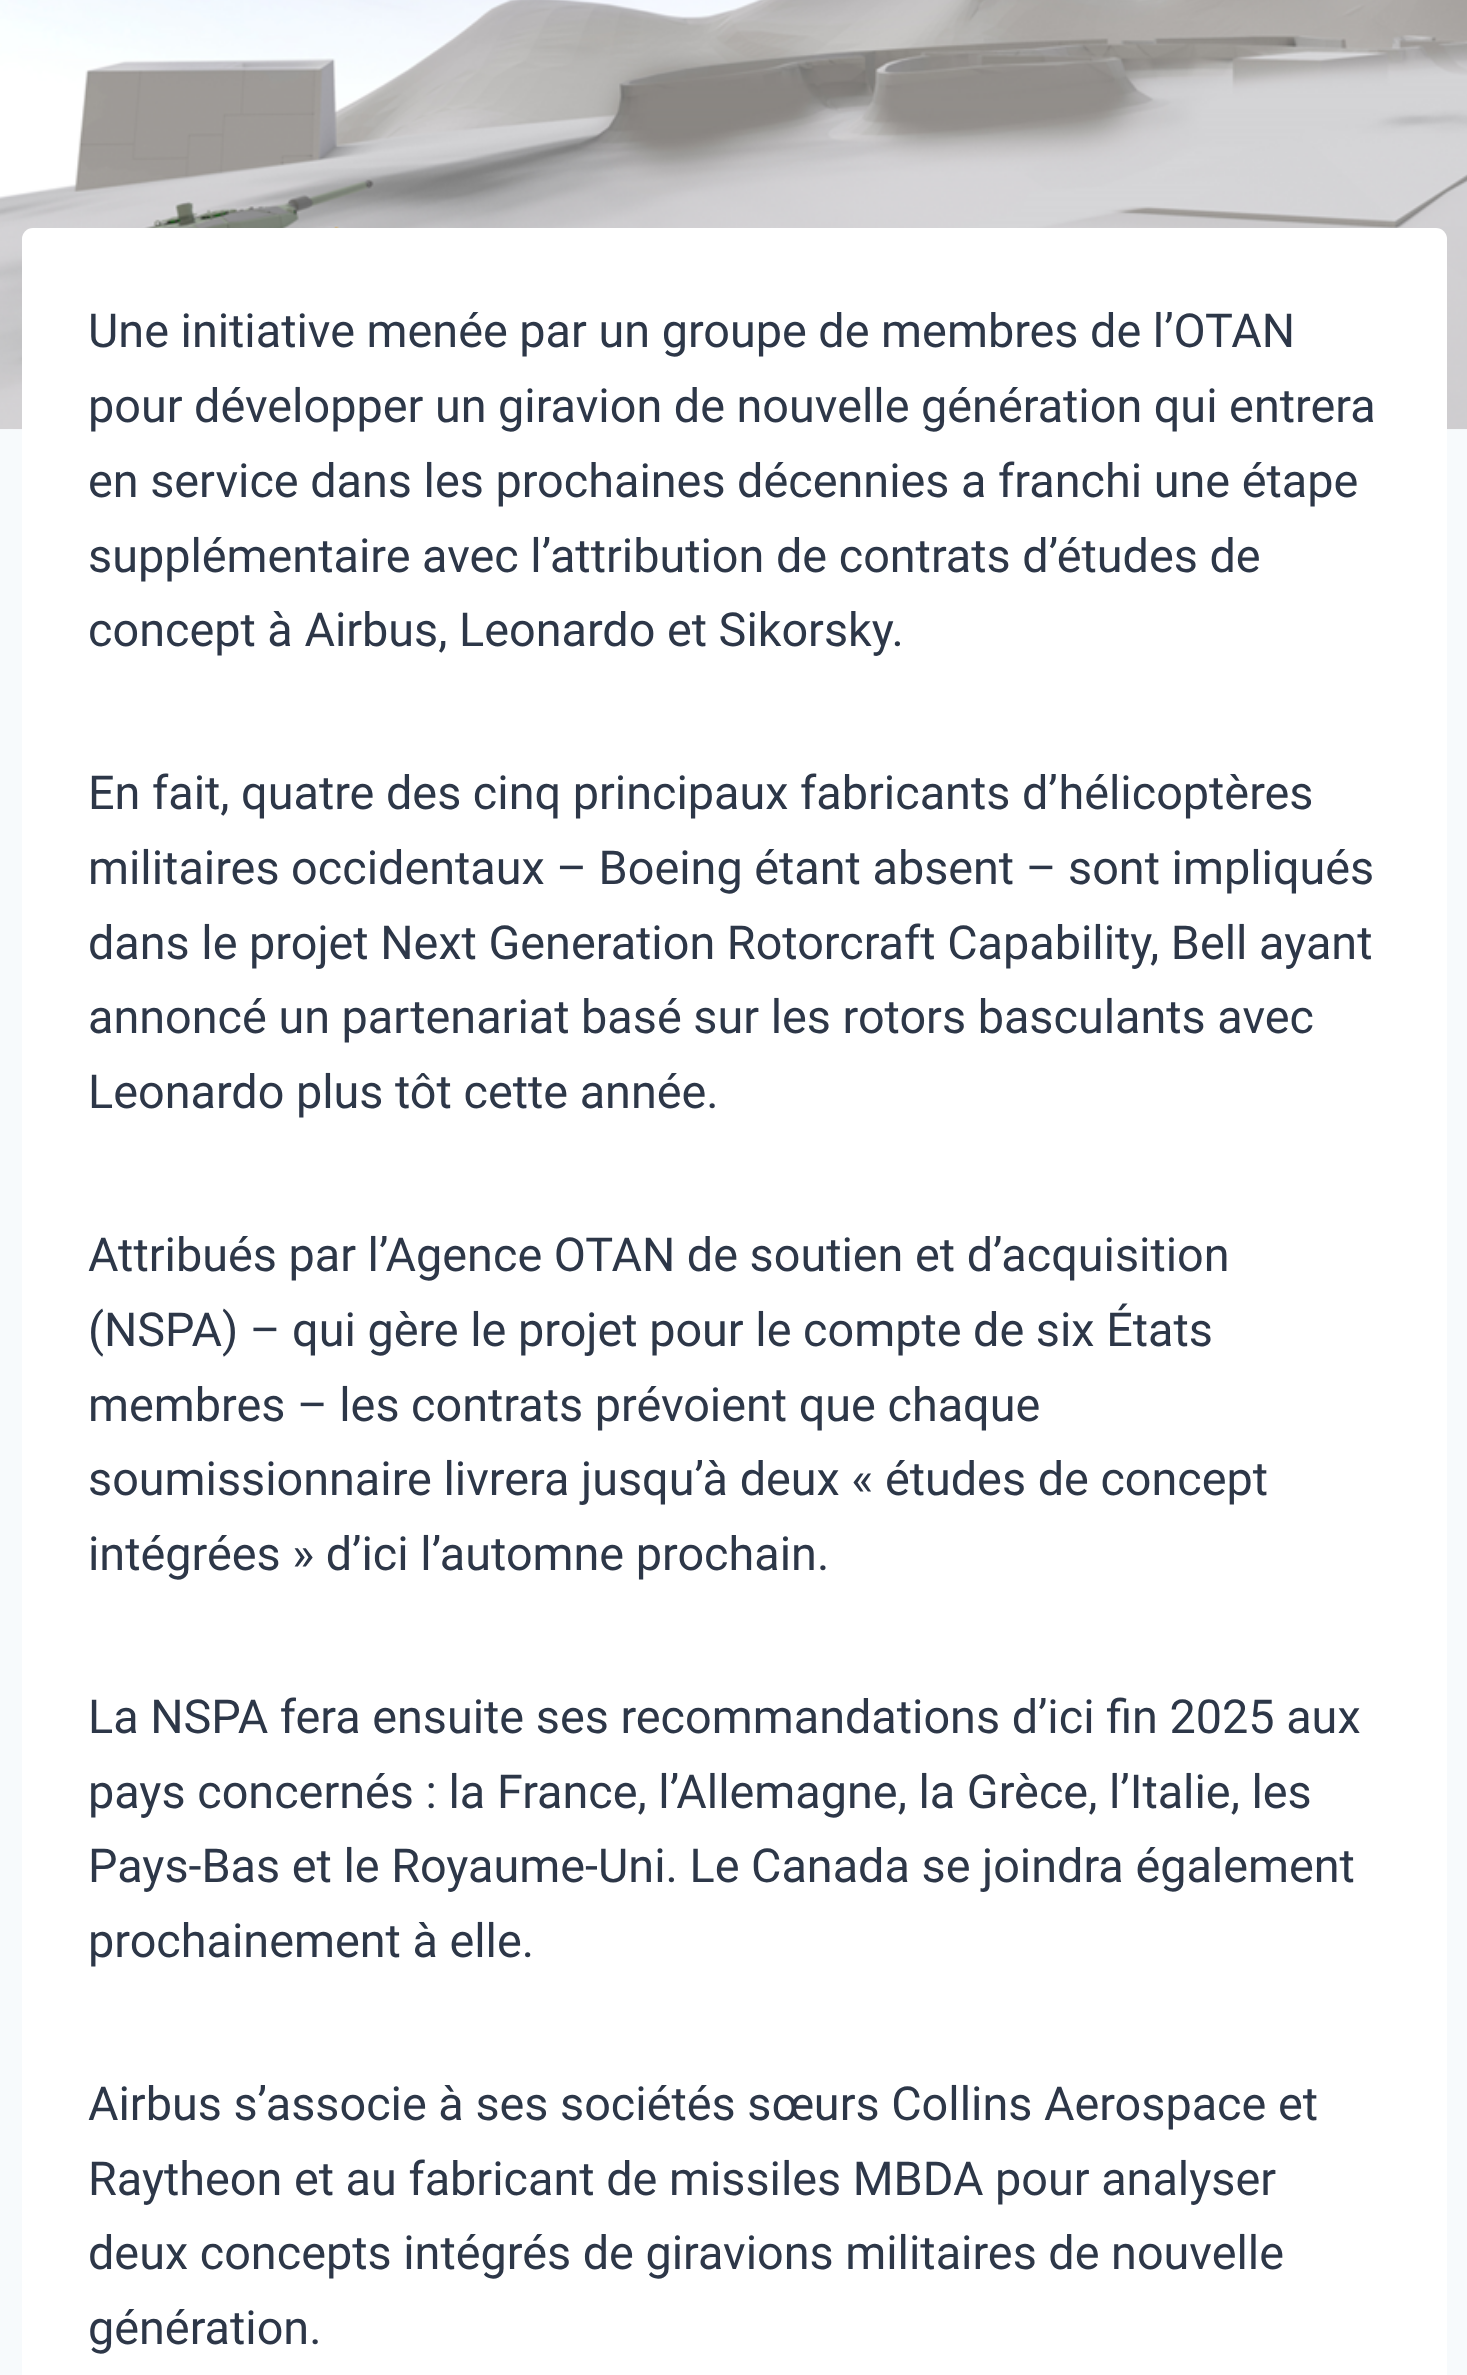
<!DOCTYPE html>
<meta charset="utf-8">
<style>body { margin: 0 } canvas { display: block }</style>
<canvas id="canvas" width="1467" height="2375"></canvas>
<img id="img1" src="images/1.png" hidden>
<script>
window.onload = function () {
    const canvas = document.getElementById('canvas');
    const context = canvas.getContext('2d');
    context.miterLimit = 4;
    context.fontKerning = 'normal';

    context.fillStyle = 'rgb(247, 250, 252)';
    context.fillRect(0, 0, 1467, 2375);
    context.drawImage(document.getElementById('img1'), 0, 0, 1467, 430);
    context.fillStyle = 'rgb(255, 255, 255)';
    context.beginPath();
    context.roundRect(22, 228, 1425, 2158, 11);
    context.fill();
    context.font = '46.75px Roboto';
    context.fillStyle = 'rgb(45, 55, 72)';
    context.fillText('Une initiative menée par un groupe de membres de l’OTAN', 88, 347);
    context.fillText('pour développer un giravion de nouvelle génération qui entrera', 88, 422);
    context.fillText('en service dans les prochaines décennies a franchi une étape', 88, 497);
    context.fillText('supplémentaire avec l’attribution de contrats d’études de', 88, 572);
    context.fillText('concept à Airbus, Leonardo et Sikorsky.', 88, 646);
    context.fillText('En fait, quatre des cinq principaux fabricants d’hélicoptères', 88, 809);
    context.fillText('militaires occidentaux – Boeing étant absent – sont impliqués', 88, 884);
    context.fillText('dans le projet Next Generation Rotorcraft Capability, Bell ayant', 88, 959);
    context.fillText('annoncé un partenariat basé sur les rotors basculants avec', 88, 1033);
    context.fillText('Leonardo plus tôt cette année.', 88, 1108);
    context.fillText('Attribués par l’Agence OTAN de soutien et d’acquisition', 88, 1271);
    context.fillText('(NSPA) – qui gère le projet pour le compte de six États', 88, 1346);
    context.fillText('membres – les contrats prévoient que chaque', 88, 1421);
    context.fillText('soumissionnaire livrera jusqu’à deux « études de concept', 88, 1495);
    context.fillText('intégrées » d’ici l’automne prochain.', 88, 1570);
    context.fillText('La NSPA fera ensuite ses recommandations d’ici fin 2025 aux', 88, 1733);
    context.fillText('pays concernés : la France, l’Allemagne, la Grèce, l’Italie, les', 88, 1808);
    context.fillText('Pays-Bas et le Royaume-Uni. Le Canada se joindra également', 88, 1882);
    context.fillText('prochainement à elle.', 88, 1957);
    context.fillText('Airbus s’associe à ses sociétés sœurs Collins Aerospace et', 88, 2120);
    context.fillText('Raytheon et au fabricant de missiles MBDA pour analyser', 88, 2195);
    context.fillText('deux concepts intégrés de giravions militaires de nouvelle', 88, 2269);
    context.fillText('génération.', 88, 2344);
};
</script>
